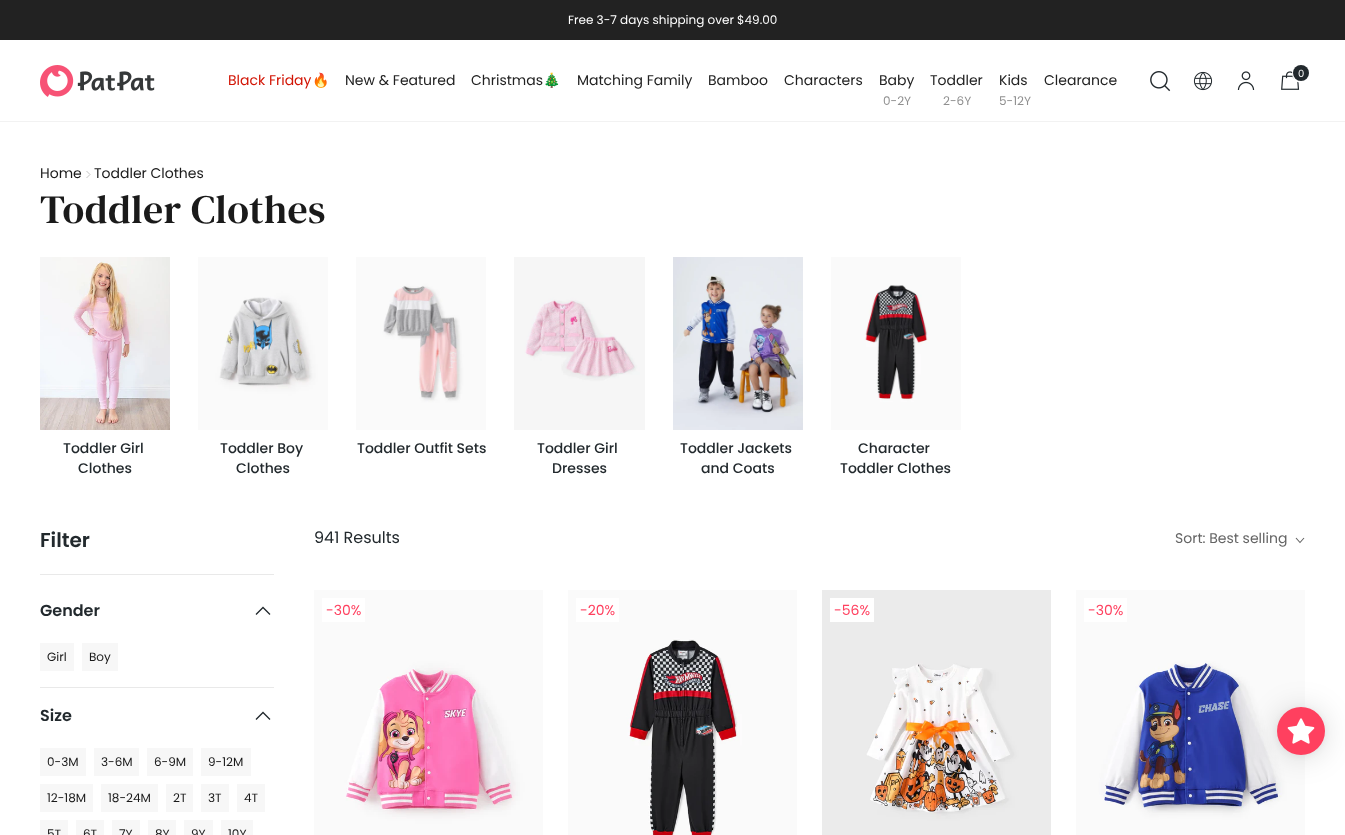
<!DOCTYPE html>
<meta charset="utf-8">
<style>body { margin: 0 } canvas { display: block }</style>
<canvas id="canvas" width="1345" height="835"></canvas>
<script type="module">
  const canvas = document.getElementById("canvas");
  const g = canvas.getContext("2d");
  g.miterLimit = 4;
  g.fontKerning = "normal";
  function drawText(s, x, y, [font, color]) {
    g.font = font;
    g.fillStyle = color;
    g.fillText(s, x, y);
  }
  function fillBox(x, y, w, h, color) {
    g.fillStyle = color;
    g.fillRect(x, y, w, h);
  }
  async function drawPicture(src, x, y, w, h) {
    const img = new Image();
    img.src = src;
    await img.decode();
    g.drawImage(img, x, y, w, h);
  }

  const s1 = ["12px Poppins", "#FFFFFF"];
  const s2 = ["14px Poppins", "#D21404"];
  const s3 = ["14px Noto Color Emoji", "#D21404"];
  const s4 = ["14px Poppins", "#222222"];
  const s5 = ["14px Noto Color Emoji", "#222222"];
  const s6 = ["12px Poppins", "#909090"];
  const s7 = ["10px Poppins", "#FFFFFF"];
  const s8 = ["14px Poppins", "#1A1A1A"];
  const s9 = ["40px DM Serif Text", "#1A1A1A"];
  const s10 = ["500 14px Poppins", "#22292D"];
  const s11 = ["600 20px Poppins", "#22292D"];
  const s12 = ["600 16px Poppins", "#22292D"];
  const s13 = ["12px Poppins", "#1A1A1A"];
  const s14 = ["16px Poppins", "#22292D"];
  const s15 = ["14px 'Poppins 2'", "#646464"];
  const s16 = ["14px Poppins", "#FF405F"];

  fillBox(0, 0, 1345, 835, "#FFFFFF");
  fillBox(0, 0, 1345, 40, "#222222");
  drawText("Free 3-7 days shipping over $49.00", 568, 24, s1);
  fillBox(0, 121, 1345, 1, "#F2F2F2");
  await drawPicture("pic1.png", 40, 65, 115, 32);
  drawText("Black Friday", 228, 85, s2);
  drawText("🔥", 312, 85, s3);
  drawText("New & Featured", 345, 85, s4);
  drawText("Christmas", 471, 85, s4);
  drawText("🎄", 543, 85, s5);
  drawText("Matching Family", 577, 85, s4);
  drawText("Bamboo", 708, 85, s4);
  drawText("Characters", 784, 85, s4);
  drawText("Baby", 879, 85, s4);
  drawText("0-2Y", 883, 105, s6);
  drawText("Toddler", 930, 85, s4);
  drawText("2-6Y", 943, 105, s6);
  drawText("Kids", 999, 85, s4);
  drawText("5-12Y", 999, 105, s6);
  drawText("Clearance", 1044, 85, s4);
  await drawPicture("pic2.png", 1150, 71, 21, 21);
  await drawPicture("pic3.png", 1193, 71, 20, 20);
  await drawPicture("pic4.png", 1237, 71, 18, 19);
  await drawPicture("pic5.png", 1281, 71, 19, 19);
  g.beginPath();
  g.arc(1301.5, 73.5, 8.5, 0, Math.PI * 2);
  g.strokeStyle = "#FFFFFF";
  g.lineWidth = 2;
  g.stroke();
  g.fillStyle = "#22292D";
  g.beginPath();
  g.arc(1301, 73, 8, 0, Math.PI * 2);
  g.fill();
  drawText("0", 1298, 77, s7);
  drawText("Home", 40, 178, s8);
  g.beginPath();
  g.moveTo(86.5, 178);
  g.lineTo(90, 174.5);
  g.lineTo(86.5, 171);
  g.strokeStyle = "#BCBCBC";
  g.lineWidth = 0.9;
  g.stroke();
  drawText("Toddler Clothes", 94, 178, s8);
  g.letterSpacing = "0.5px";
  drawText("Toddler Clothes", 40, 223, s9);
  await drawPicture("pic6.png", 40, 257, 130, 173);
  g.letterSpacing = "0px";
  drawText("Toddler Girl", 63, 453, s10);
  drawText("Clothes", 78, 473, s10);
  await drawPicture("pic7.png", 198, 257, 130, 173);
  drawText("Toddler Boy", 220, 453, s10);
  drawText("Clothes", 236, 473, s10);
  await drawPicture("pic8.png", 356, 257, 130, 173);
  drawText("Toddler Outfit Sets", 357, 453, s10);
  await drawPicture("pic9.png", 514, 257, 131, 173);
  drawText("Toddler Girl", 537, 453, s10);
  drawText("Dresses", 552, 473, s10);
  await drawPicture("pic10.png", 673, 257, 130, 173);
  drawText("Toddler Jackets", 680, 453, s10);
  drawText("and Coats", 701, 473, s10);
  await drawPicture("pic11.png", 831, 257, 130, 173);
  drawText("Character", 858, 453, s10);
  drawText("Toddler Clothes", 840, 473, s10);
  fillBox(40, 574, 234, 1, "#E9E9E9");
  drawText("Filter", 40, 547, s11);
  drawText("Gender", 40, 616, s12);
  g.beginPath();
  g.moveTo(256, 614.5);
  g.lineTo(263, 607.5);
  g.lineTo(270, 614.5);
  g.strokeStyle = "#22292D";
  g.lineWidth = 1.3;
  g.stroke();
  fillBox(40, 643, 34, 28, "#F7F7F7");
  drawText("Girl", 47, 661, s13);
  fillBox(82, 643, 36, 28, "#F7F7F7");
  drawText("Boy", 89, 661, s13);
  fillBox(40, 687, 234, 1, "#E9E9E9");
  drawText("Size", 40, 721, s12);
  g.beginPath();
  g.moveTo(256, 719.5);
  g.lineTo(263, 712.5);
  g.lineTo(270, 719.5);
  g.stroke();
  fillBox(40, 748, 46, 28, "#F7F7F7");
  drawText("0-3M", 47, 766, s13);
  fillBox(94, 748, 45, 28, "#F7F7F7");
  drawText("3-6M", 101, 766, s13);
  fillBox(147, 748, 46, 28, "#F7F7F7");
  drawText("6-9M", 154, 766, s13);
  fillBox(201, 748, 50, 28, "#F7F7F7");
  drawText("9-12M", 208, 766, s13);
  fillBox(40, 784, 53, 28, "#F7F7F7");
  drawText("12-18M", 47, 802, s13);
  fillBox(101, 784, 57, 28, "#F7F7F7");
  drawText("18-24M", 108, 802, s13);
  fillBox(166, 784, 27, 28, "#F7F7F7");
  drawText("2T", 173, 802, s13);
  fillBox(201, 784, 28, 28, "#F7F7F7");
  drawText("3T", 208, 802, s13);
  fillBox(237, 784, 28, 28, "#F7F7F7");
  drawText("4T", 244, 802, s13);
  fillBox(40, 820, 28, 15, "#F7F7F7");
  drawText("5T", 47, 838, s13);
  fillBox(76, 820, 28, 15, "#F7F7F7");
  drawText("6T", 83, 838, s13);
  fillBox(112, 820, 28, 15, "#F7F7F7");
  drawText("7Y", 119, 838, s13);
  fillBox(148, 820, 28, 15, "#F7F7F7");
  drawText("8Y", 155, 838, s13);
  fillBox(184, 820, 29, 15, "#F7F7F7");
  drawText("9Y", 191, 838, s13);
  fillBox(221, 820, 32, 15, "#F7F7F7");
  drawText("10Y", 228, 838, s13);
  drawText("941 Results", 314, 543, s14);
  drawText("Sort: Best selling", 1175, 543, s15);
  g.beginPath();
  g.moveTo(1296, 538);
  g.lineTo(1300, 542.5);
  g.lineTo(1304, 538);
  g.strokeStyle = "#646464";
  g.lineWidth = 1.1;
  g.stroke();
  await drawPicture("pic12.png", 314, 590, 229, 245);
  fillBox(322, 598, 43, 24, "#FFFFFF");
  drawText("-30%", 326, 615, s16);
  await drawPicture("pic13.png", 568, 590, 229, 245);
  fillBox(576, 598, 43, 24, "#FFFFFF");
  drawText("-20%", 580, 615, s16);
  await drawPicture("pic14.png", 822, 590, 229, 245);
  fillBox(830, 598, 44, 24, "#FFFFFF");
  drawText("-56%", 834, 615, s16);
  await drawPicture("pic15.png", 1076, 590, 229, 245);
  fillBox(1084, 598, 43, 24, "#FFFFFF");
  drawText("-30%", 1088, 615, s16);
  g.fillStyle = "rgba(0, 0, 0, 0.15)";
  g.filter = "blur(15px)";
  g.beginPath();
  g.roundRect(1277, 709, 48, 48, 24);
  g.fill();
  g.filter = "none";
  g.fillStyle = "rgba(0, 0, 0, 0.05)";
  g.filter = "blur(3px)";
  g.beginPath();
  g.roundRect(1277, 708, 48, 48, 24);
  g.fill();
  g.filter = "none";
  g.fillStyle = "#FF405F";
  g.beginPath();
  g.arc(1301, 731, 24, 0, Math.PI * 2);
  g.fill();
  await drawPicture("pic16.png", 1287, 718, 28, 26);
</script>
